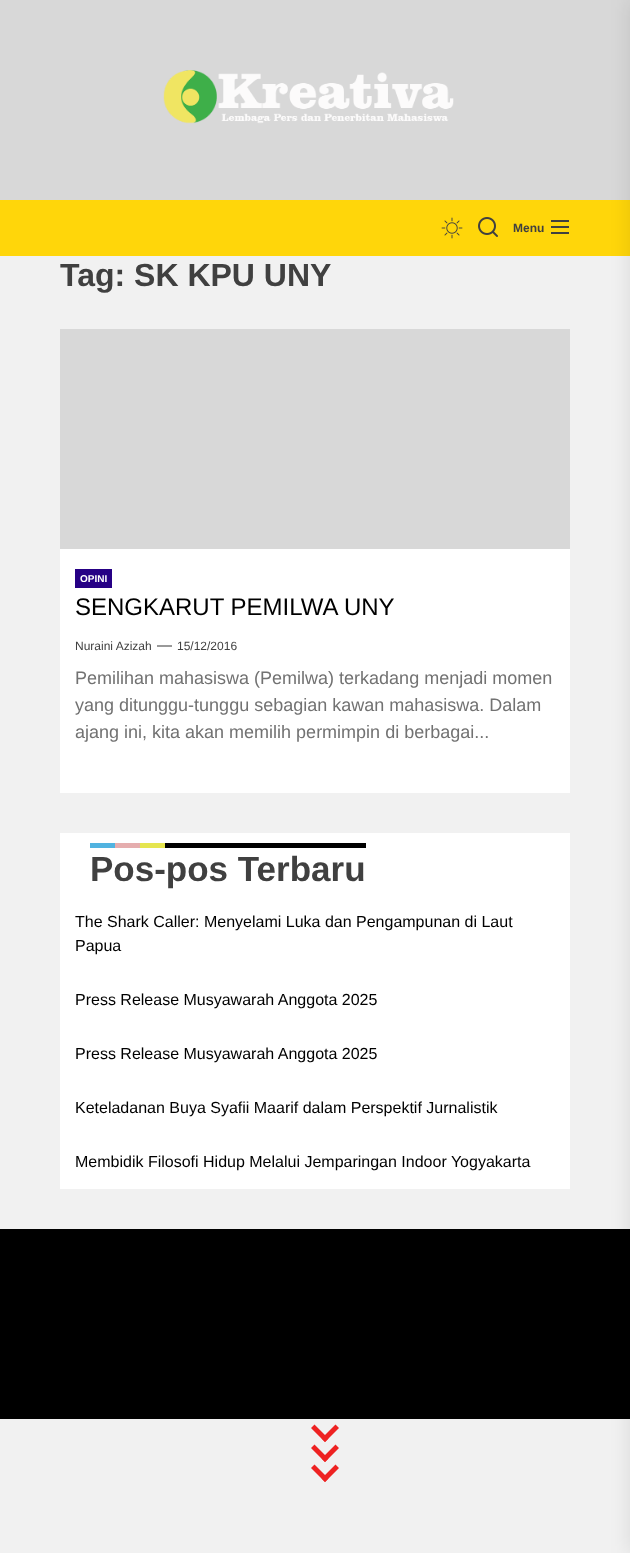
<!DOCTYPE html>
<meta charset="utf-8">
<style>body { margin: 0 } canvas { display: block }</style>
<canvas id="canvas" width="630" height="1553"></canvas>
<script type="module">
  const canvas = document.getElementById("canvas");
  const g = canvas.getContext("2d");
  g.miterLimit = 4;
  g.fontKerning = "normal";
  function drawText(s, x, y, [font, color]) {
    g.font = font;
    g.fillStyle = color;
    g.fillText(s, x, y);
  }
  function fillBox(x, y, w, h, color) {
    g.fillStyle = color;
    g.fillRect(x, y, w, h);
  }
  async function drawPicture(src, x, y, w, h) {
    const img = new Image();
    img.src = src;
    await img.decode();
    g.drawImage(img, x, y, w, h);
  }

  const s1 = ["bold 12px Liberation Sans", "#404040"];
  const s2 = ["bold 32px Liberation Sans", "#404040"];
  const s3 = ["bold 10px Liberation Sans", "#FFFFFF"];
  const s4 = ["24px Liberation Sans", "#000000"];
  const s5 = ["12px Liberation Sans", "#404040"];
  const s6 = ["18px Liberation Sans", "#727272"];
  const s7 = ["bold 35px Liberation Sans", "#404040"];
  const s8 = ["16px Liberation Sans", "#000000"];

  fillBox(0, 0, 630, 1553, "#F1F1F1");
  fillBox(0, 0, 630, 200, "#D8D8D8");
  await drawPicture("pic1.png", 163, 70, 291, 54);
  fillBox(0, 200, 630, 56, "#FFD60A");
  await drawPicture("pic2.png", 441, 217, 22, 22);
  await drawPicture("pic3.png", 478, 217, 20, 20);
  drawText("Menu", 513, 232, s1);
  await drawPicture("pic4.png", 551, 220, 18, 14);
  fillBox(0, 1229, 630, 190, "#000000");
  g.fillStyle = "rgba(0, 0, 0, 0.1)";
  g.filter = "blur(10px)";
  g.beginPath();
  g.rect(630, 0, 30, 1553);
  g.fill();
  g.filter = "none";
  drawText("Tag: SK KPU UNY", 60, 286, s2);
  fillBox(60, 549, 510, 244, "#FFFFFF");
  fillBox(60, 329, 510, 220, "#D8D8D8");
  fillBox(75, 569, 37, 19, "#260085");
  drawText("OPINI", 80, 582, s3);
  drawText("SENGKARUT PEMILWA UNY", 75, 615, s4);
  drawText("Nuraini Azizah", 75, 650, s5);
  fillBox(157, 645, 15, 2, "#999999");
  drawText("15/12/2016", 177, 650, s5);
  drawText("Pemilihan mahasiswa (Pemilwa) terkadang menjadi momen", 75, 684, s6);
  drawText("yang ditunggu-tunggu sebagian kawan mahasiswa. Dalam", 75, 711, s6);
  drawText("ajang ini, kita akan memilih permimpin di berbagai...", 75, 738, s6);
  fillBox(60, 833, 510, 356, "#FFFFFF");
  fillBox(90, 843, 25, 5, "#51B3E0");
  fillBox(115, 843, 25, 5, "#E5ADAE");
  fillBox(140, 843, 25, 5, "#E5E54F");
  fillBox(165, 843, 201, 5, "#000000");
  drawText("Pos-pos Terbaru", 90, 881, s7);
  drawText("The Shark Caller: Menyelami Luka dan Pengampunan di Laut", 75, 927, s8);
  drawText("Papua", 75, 951, s8);
  drawText("Press Release Musyawarah Anggota 2025", 75, 1005, s8);
  drawText("Press Release Musyawarah Anggota 2025", 75, 1059, s8);
  drawText("Keteladanan Buya Syafii Maarif dalam Perspektif Jurnalistik", 75, 1113, s8);
  drawText("Membidik Filosofi Hidup Melalui Jemparingan Indoor Yogyakarta", 75, 1167, s8);
  g.fillStyle = "#EE2222";
  g.beginPath();
  g.moveTo(335.5, 1424.5);
  g.lineTo(339, 1428);
  g.lineTo(325, 1442);
  g.lineTo(321.5, 1438.5);
  g.closePath();
  g.fill();
  g.beginPath();
  g.moveTo(314.5, 1424.5);
  g.lineTo(328.5, 1438.5);
  g.lineTo(325, 1442);
  g.lineTo(311, 1428);
  g.closePath();
  g.moveTo(335.5, 1444.5);
  g.lineTo(339, 1448);
  g.lineTo(325, 1462);
  g.lineTo(321.5, 1458.5);
  g.closePath();
  g.fill();
  g.beginPath();
  g.moveTo(314.5, 1444.5);
  g.lineTo(328.5, 1458.5);
  g.lineTo(325, 1462);
  g.lineTo(311, 1448);
  g.closePath();
  g.moveTo(335.5, 1464.5);
  g.lineTo(339, 1468);
  g.lineTo(325, 1482);
  g.lineTo(321.5, 1478.5);
  g.closePath();
  g.fill();
  g.beginPath();
  g.moveTo(314.5, 1464.5);
  g.lineTo(328.5, 1478.5);
  g.lineTo(325, 1482);
  g.lineTo(311, 1468);
  g.closePath();
  g.fill();
</script>
